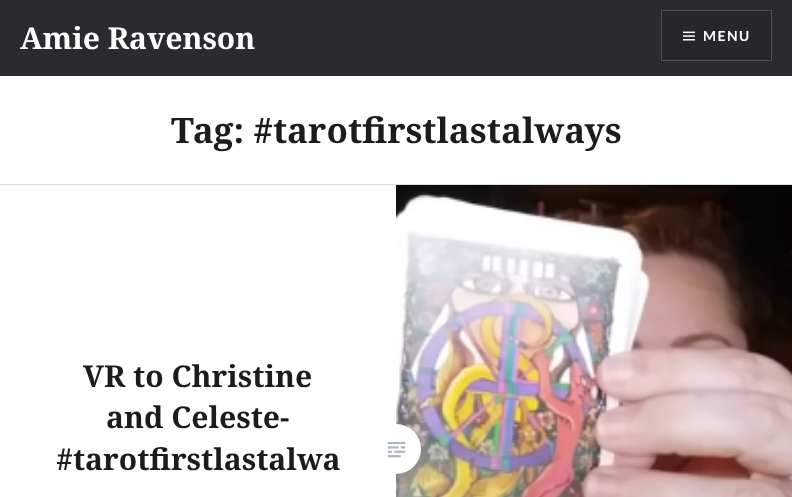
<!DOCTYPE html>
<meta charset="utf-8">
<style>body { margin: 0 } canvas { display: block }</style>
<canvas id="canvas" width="792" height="497"></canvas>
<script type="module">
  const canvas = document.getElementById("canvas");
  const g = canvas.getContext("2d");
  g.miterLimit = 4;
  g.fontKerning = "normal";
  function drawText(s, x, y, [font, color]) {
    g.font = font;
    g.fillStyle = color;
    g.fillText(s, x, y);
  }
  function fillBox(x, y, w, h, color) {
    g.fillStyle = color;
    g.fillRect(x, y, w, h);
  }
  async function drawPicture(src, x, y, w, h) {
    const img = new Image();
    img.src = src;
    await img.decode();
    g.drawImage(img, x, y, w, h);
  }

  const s1 = ["bold 30px Noto Serif", "#FFFFFF"];
  const s2 = ["bold 14px Lato", "#FFFFFF"];
  const s3 = ["bold 35px Noto Serif", "#1A1C1E"];
  const s4 = ["bold 30px Noto Serif", "#1A1C1E"];

  fillBox(0, 0, 792, 497, "#FFFFFF");
  fillBox(0, 0, 792, 76, "#292C2F");
  drawText("Amie Ravenson", 20, 49, s1);
  g.fillStyle = "#25282A";
  g.beginPath();
  g.rect(661.5, 10.5, 110, 50);
  g.fill();
  g.strokeStyle = "#515355";
  g.stroke();
  await drawPicture("pic1.png", 683, 31, 12, 10);
  g.letterSpacing = "1.5px";
  drawText("MENU", 703, 41, s2);
  fillBox(0, 184, 792, 1, "#D9DFE5");
  g.letterSpacing = "0px";
  drawText("Tag: #tarotfirstlastalways", 171, 143, s3);
  drawText("VR to Christine", 83, 387, s4);
  drawText("and Celeste-", 106, 428, s4);
  drawText("#tarotfirstlastalwa", 56, 470, s4);
  await drawPicture("pic3.png", 396, 185, 396, 312);
  g.fillStyle = "#FFFFFF";
  g.beginPath();
  g.arc(396, 449, 25, 0, Math.PI * 2);
  g.fill();
  await drawPicture("pic2.png", 387, 441, 19, 17);
</script>
